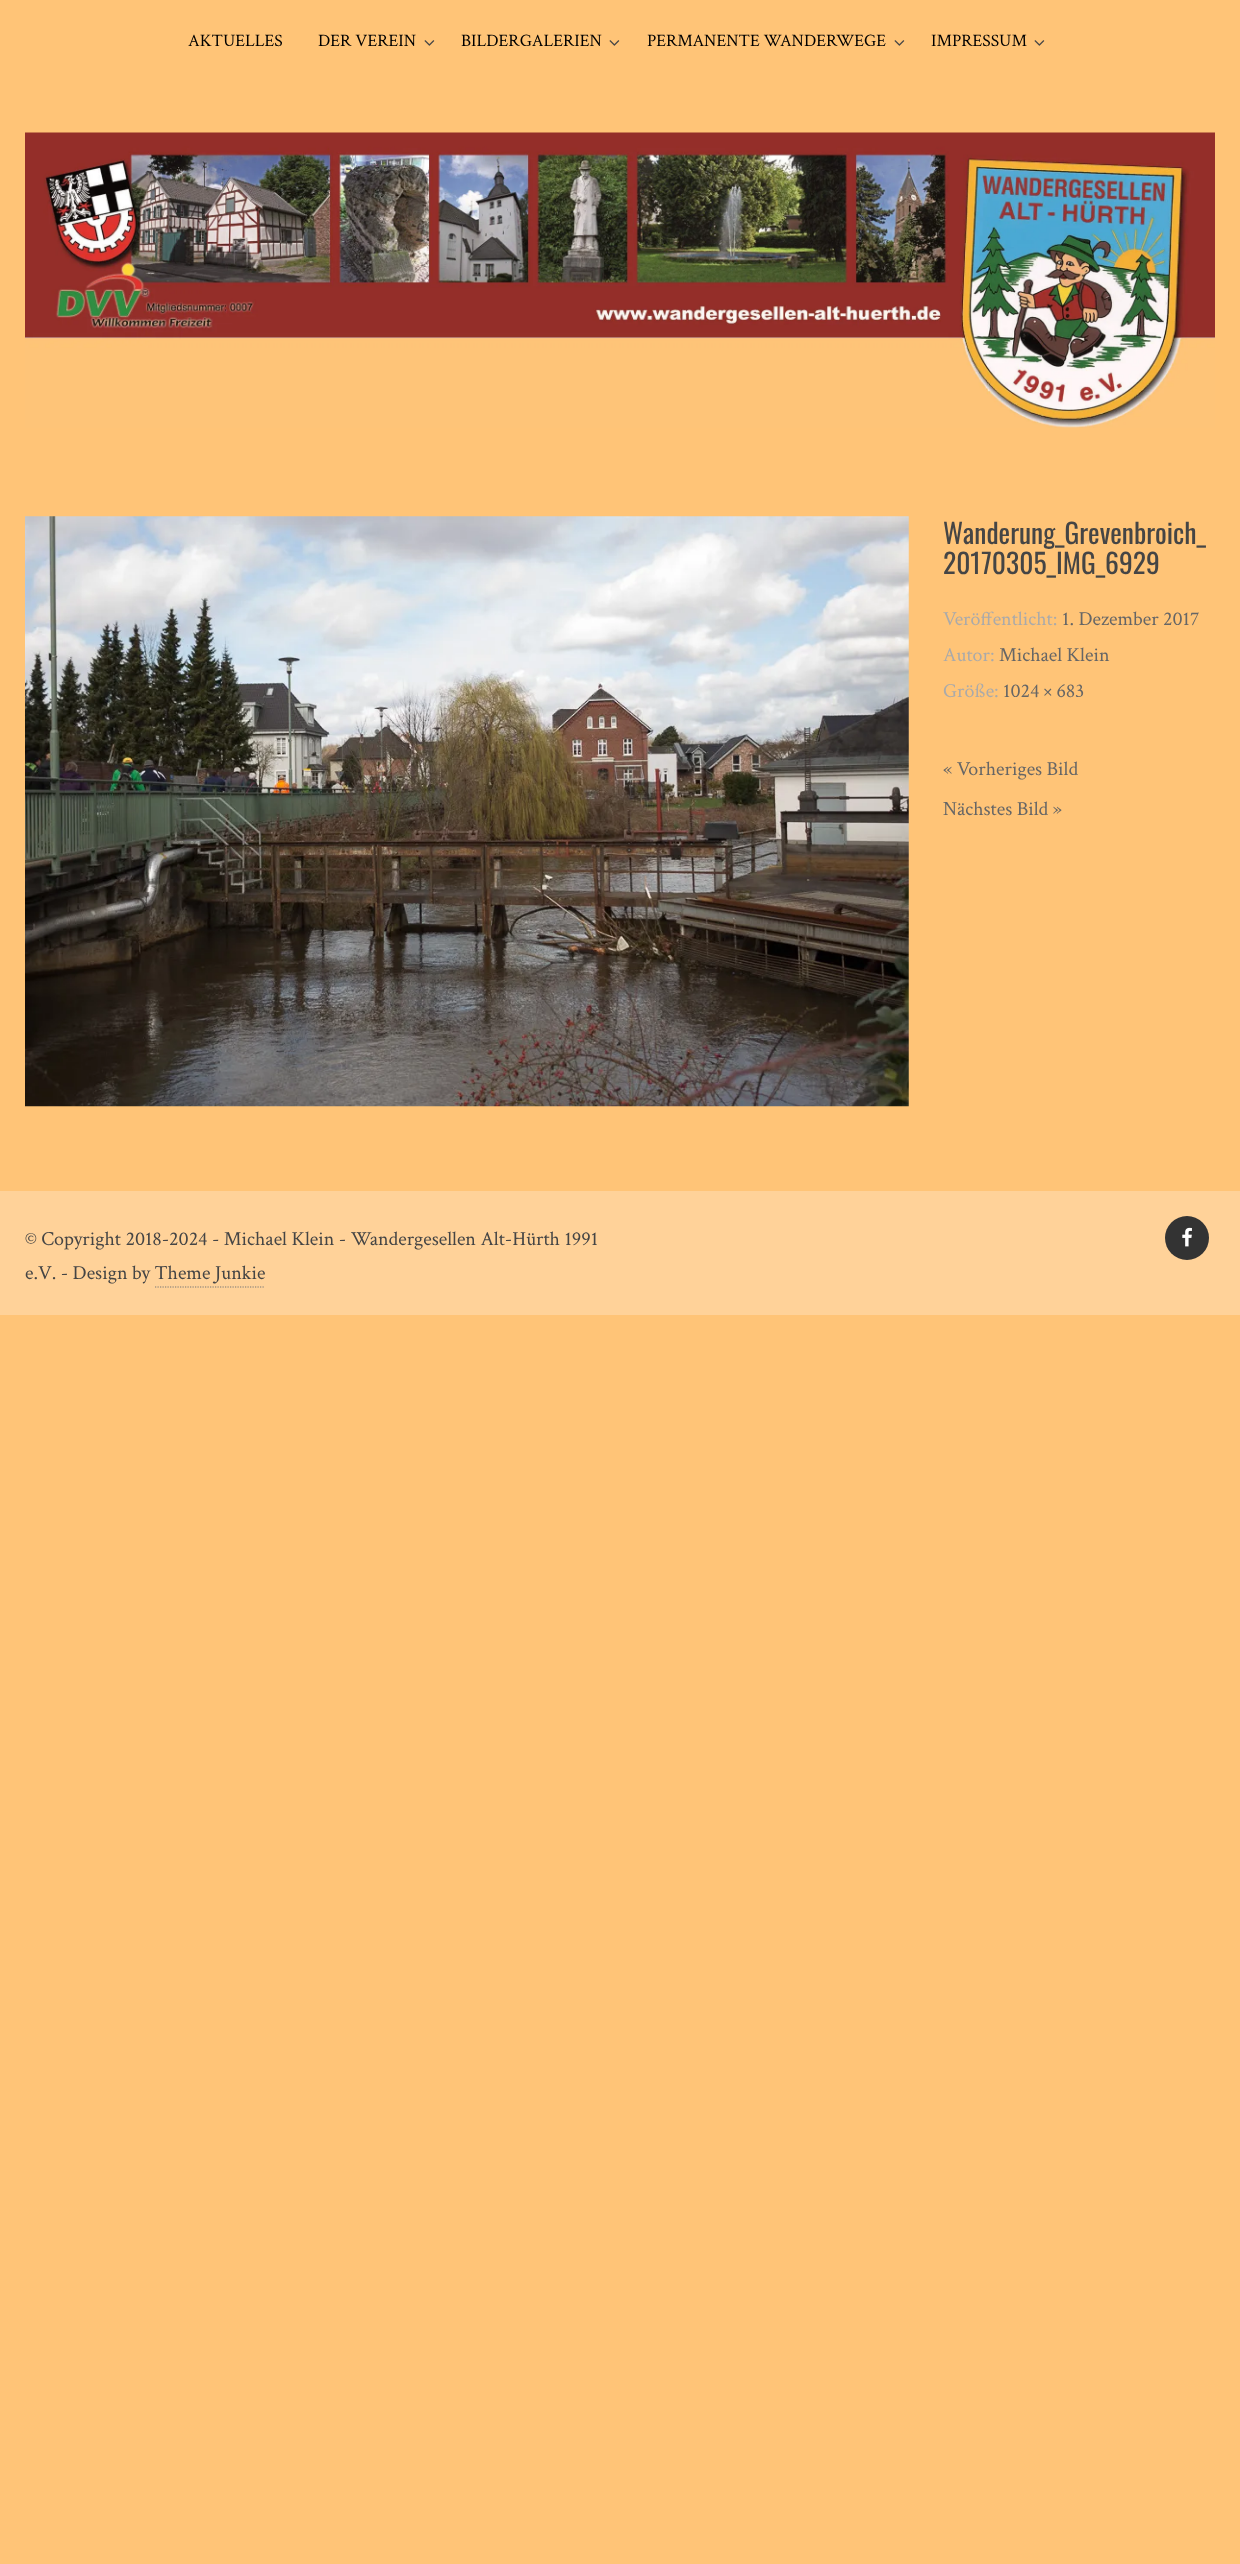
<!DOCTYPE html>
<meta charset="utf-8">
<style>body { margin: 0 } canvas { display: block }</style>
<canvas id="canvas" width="1240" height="2564"></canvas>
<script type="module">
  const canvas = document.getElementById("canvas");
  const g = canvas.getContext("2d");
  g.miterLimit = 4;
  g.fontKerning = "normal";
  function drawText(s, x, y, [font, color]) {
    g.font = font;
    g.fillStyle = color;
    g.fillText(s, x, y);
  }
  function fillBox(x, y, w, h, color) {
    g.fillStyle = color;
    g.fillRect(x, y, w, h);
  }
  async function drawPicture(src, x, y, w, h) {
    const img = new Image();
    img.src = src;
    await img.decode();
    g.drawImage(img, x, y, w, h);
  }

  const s1 = ["17.5px Crimson Text", "#000000"];
  const s2 = ["27.5px Oswald", "#454545"];
  const s3 = ["20px Crimson Text", "#AAAAAA"];
  const s4 = ["20px Crimson Text", "#666666"];
  const s5 = ["20px Crimson Text", "#454545"];

  fillBox(0, 0, 1240, 2564, "#FFC477");
  drawText("AKTUELLES", 188, 46, s1);
  drawText("DER VEREIN", 318, 46, s1);
  await drawPicture("pic1.png", 424, 40, 11, 6);
  drawText("BILDERGALERIEN", 461, 46, s1);
  await drawPicture("pic1.png", 609, 40, 11, 6);
  drawText("PERMANENTE WANDERWEGE", 647, 46, s1);
  await drawPicture("pic1.png", 894, 40, 11, 6);
  drawText("IMPRESSUM", 931, 46, s1);
  await drawPicture("pic1.png", 1034, 40, 11, 6);
  await drawPicture("pic2.png", 25, 132, 1190, 296);
  await drawPicture("pic3.png", 25, 516, 884, 591);
  drawText("Wanderung_Grevenbroich_", 943, 544, s2);
  drawText("20170305_IMG_6929", 943, 574, s2);
  drawText("Veröffentlicht:", 943, 625, s3);
  drawText("1. Dezember 2017", 1062, 625, s4);
  drawText("Autor:", 943, 661, s3);
  drawText("Michael Klein", 999, 661, s4);
  drawText("Größe:", 943, 697, s3);
  drawText("1024 × 683", 1003, 697, s4);
  drawText("« Vorheriges Bild", 943, 775, s4);
  drawText("Nächstes Bild »", 943, 815, s4);
  fillBox(0, 1191, 1240, 124, "#FFD299");
  drawText("© Copyright 2018-2024 - Michael Klein - Wandergesellen Alt-Hürth 1991", 25, 1245, s5);
  drawText("e.V. - Design by Theme Junkie", 25, 1279, s5);
  g.beginPath();
  g.moveTo(155, 1287);
  g.lineTo(265, 1287);
  g.strokeStyle = "#777777";
  g.lineWidth = 1.2;
  g.setLineDash([1.25, 1.25]);
  g.stroke();
  g.fillStyle = "#333333";
  g.beginPath();
  g.arc(1187, 1238, 22, 0, Math.PI * 2);
  g.fill();
  await drawPicture("pic4.png", 1182, 1227, 10, 20);
</script>
